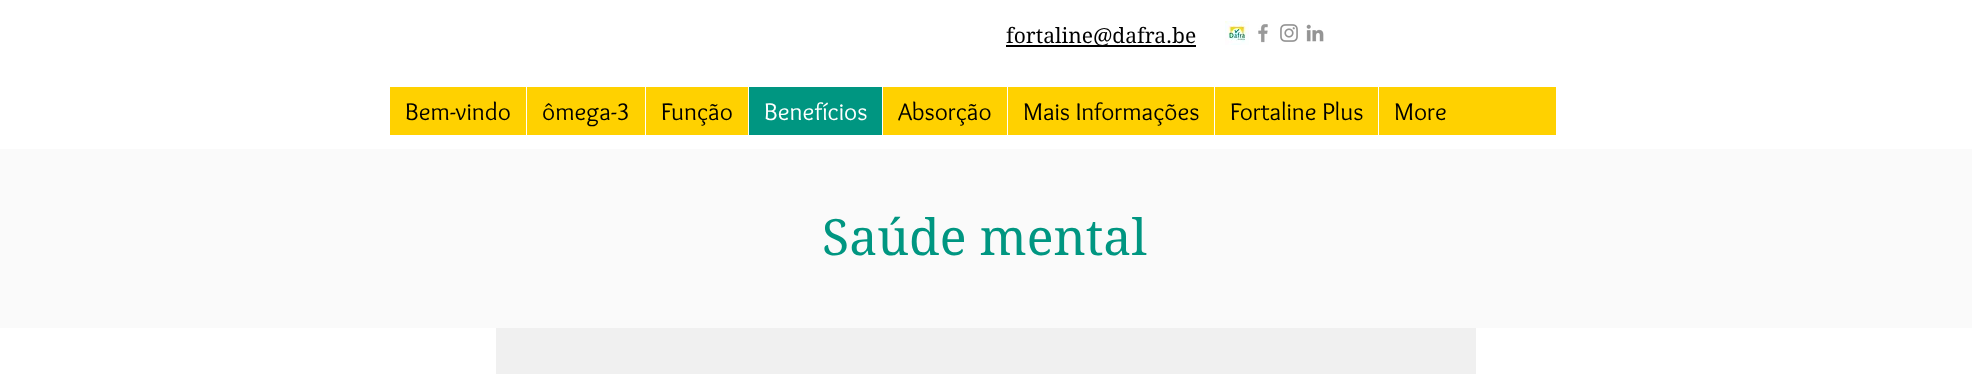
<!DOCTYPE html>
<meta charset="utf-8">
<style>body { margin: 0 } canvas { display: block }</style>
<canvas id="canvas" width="1972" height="374"></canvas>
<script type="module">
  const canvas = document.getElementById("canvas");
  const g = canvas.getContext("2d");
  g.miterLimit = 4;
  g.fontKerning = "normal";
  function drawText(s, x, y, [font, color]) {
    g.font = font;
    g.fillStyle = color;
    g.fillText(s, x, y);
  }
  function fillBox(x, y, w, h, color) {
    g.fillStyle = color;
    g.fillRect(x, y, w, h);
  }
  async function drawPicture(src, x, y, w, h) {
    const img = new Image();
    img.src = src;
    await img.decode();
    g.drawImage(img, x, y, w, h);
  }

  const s1 = ["21px 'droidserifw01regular'", "#000000"];
  const s2 = ["25px Overlock", "#000000"];
  const s3 = ["25px Overlock", "#FFFFFF"];
  const s4 = ["50px 'droidserifw01regular'", "#009681"];

  fillBox(0, 0, 1972, 374, "#FFFFFF");
  fillBox(1006, 45, 190, 2, "#000000");
  drawText("fortaline@dafra.be", 1006, 43, s1);
  await drawPicture("pic1.png", 1225, 21, 24, 24);
  await drawPicture("pic2.png", 1258, 24, 10, 19);
  await drawPicture("pic3.png", 1280, 24, 18, 18);
  await drawPicture("pic4.png", 1306, 24, 18, 18);
  fillBox(390, 87, 1166, 48, "#FFD100");
  drawText("Bem-vindo", 405, 120, s2);
  fillBox(526, 87, 1, 48, "#FFFFFF");
  drawText("ômega-3", 542, 120, s2);
  fillBox(645, 87, 1, 48, "#FFFFFF");
  drawText("Função", 661, 120, s2);
  fillBox(749, 87, 133, 48, "#009681");
  fillBox(748, 87, 1, 48, "#FFFFFF");
  drawText("Benefícios", 764, 120, s3);
  fillBox(882, 87, 1, 48, "#FFFFFF");
  drawText("Absorção", 898, 120, s2);
  fillBox(1007, 87, 1, 48, "#FFFFFF");
  drawText("Mais Informações", 1023, 120, s2);
  fillBox(1214, 87, 1, 48, "#FFFFFF");
  drawText("Fortaline Plus", 1230, 120, s2);
  fillBox(1378, 87, 1, 48, "#FFFFFF");
  drawText("More", 1394, 120, s2);
  fillBox(0, 149, 1972, 179, "#FAFAFA");
  drawText("Saúde mental", 822, 255, s4);
  fillBox(496, 328, 980, 46, "#F0F0F0");
</script>
